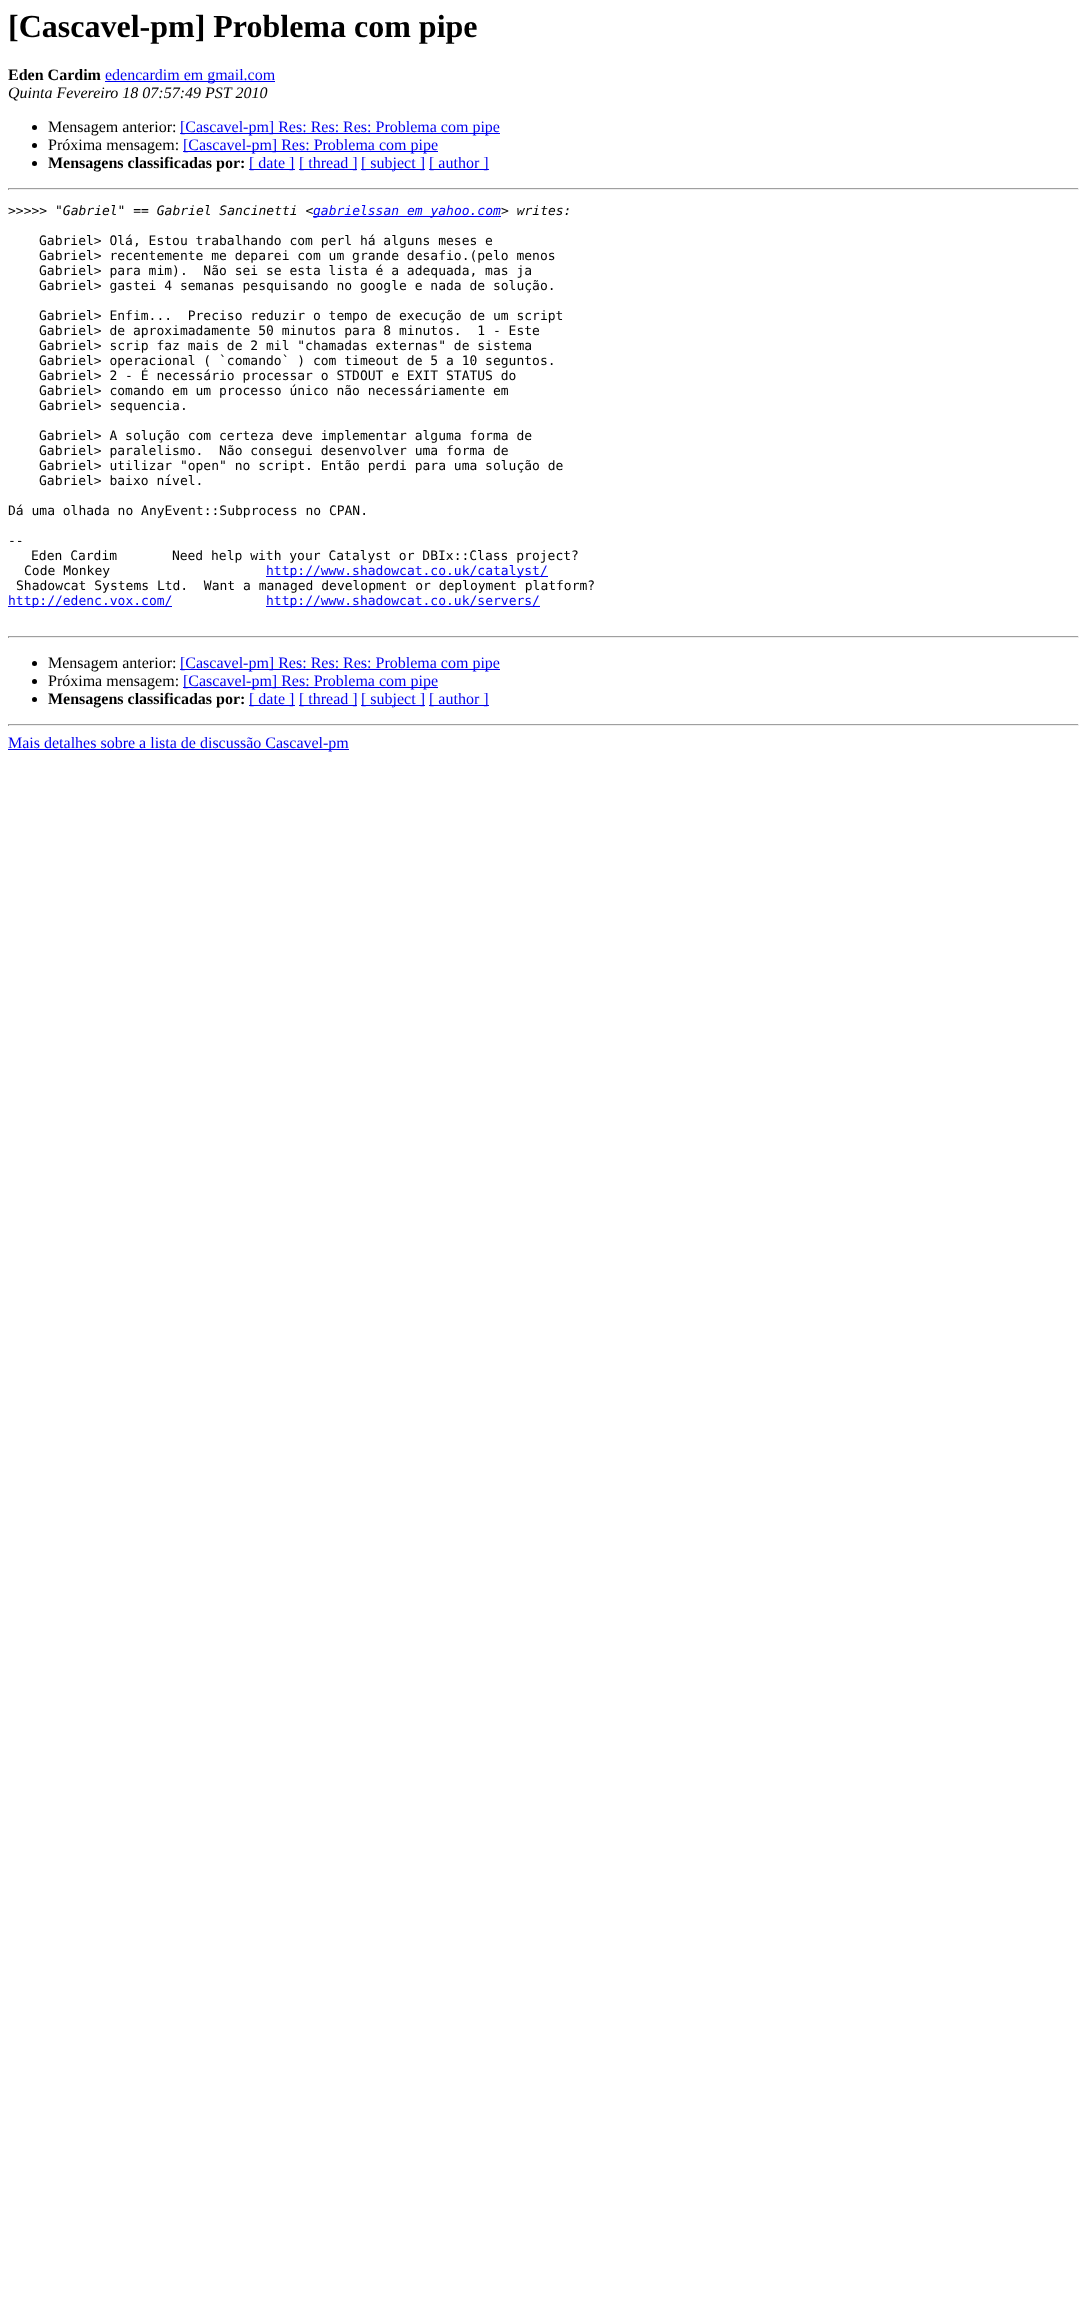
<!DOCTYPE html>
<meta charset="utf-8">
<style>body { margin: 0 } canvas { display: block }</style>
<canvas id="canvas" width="1087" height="2300"></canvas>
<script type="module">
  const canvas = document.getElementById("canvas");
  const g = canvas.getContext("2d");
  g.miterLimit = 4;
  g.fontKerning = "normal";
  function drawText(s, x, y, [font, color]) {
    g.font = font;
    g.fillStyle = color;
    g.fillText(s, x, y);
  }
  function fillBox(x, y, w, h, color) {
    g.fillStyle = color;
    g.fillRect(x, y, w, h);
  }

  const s1 = ["bold 32px Liberation Serif", "#000000"];
  const s2 = ["bold 16px Liberation Serif", "#000000"];
  const s3 = ["16px Liberation Serif", "#0000EE"];
  const s4 = ["italic 16px Liberation Serif", "#000000"];
  const s5 = ["16px Liberation Serif", "#000000"];
  const s6 = ["13px DejaVu Sans Mono", "#000000"];
  const s7 = ["italic 13px DejaVu Sans Mono", "#000000"];
  const s8 = ["italic 13px DejaVu Sans Mono", "#0000EE"];
  const s9 = ["13px DejaVu Sans Mono", "#0000EE"];

  fillBox(0, 0, 1087, 2300, "#FFFFFF");
  drawText("[Cascavel-pm] Problema com pipe", 8, 37, s1);
  drawText("Eden Cardim", 8, 80, s2);
  fillBox(105, 81, 170, 1, "#0000EE");
  drawText("edencardim em gmail.com", 105, 80, s3);
  drawText("Quinta Fevereiro 18 07:57:49 PST 2010", 8, 98, s4);
  g.beginPath();
  g.arc(34.5, 127.5, 2.5, 0, Math.PI * 2);
  g.fill();
  drawText("Mensagem anterior:", 48, 132, s5);
  fillBox(180, 133, 320, 1, "#0000EE");
  drawText("[Cascavel-pm] Res: Res: Res: Problema com pipe", 180, 132, s3);
  g.fillStyle = "#000000";
  g.beginPath();
  g.arc(34.5, 145.5, 2.5, 0, Math.PI * 2);
  g.fill();
  drawText("Próxima mensagem:", 48, 150, s5);
  fillBox(183, 151, 255, 1, "#0000EE");
  drawText("[Cascavel-pm] Res: Problema com pipe", 183, 150, s3);
  g.fillStyle = "#000000";
  g.beginPath();
  g.arc(34.5, 163.5, 2.5, 0, Math.PI * 2);
  g.fill();
  drawText("Mensagens classificadas por:", 48, 168, s2);
  fillBox(249, 169, 46, 1, "#0000EE");
  drawText("[ date ]", 249, 168, s3);
  fillBox(299, 169, 58, 1, "#0000EE");
  drawText("[ thread ]", 299, 168, s3);
  fillBox(361, 169, 64, 1, "#0000EE");
  drawText("[ subject ]", 361, 168, s3);
  fillBox(429, 169, 60, 1, "#0000EE");
  drawText("[ author ]", 429, 168, s3);
  fillBox(8, 188, 1071, 1, "#9F9F9F");
  fillBox(1078, 188, 1, 2, "#EEEEEE");
  fillBox(8, 189, 1071, 1, "#EEEEEE");
  fillBox(8, 188, 1, 2, "#9F9F9F");
  drawText(">>>>>", 8, 215, s6);
  drawText("\"Gabriel\" == Gabriel Sancinetti <", 55, 215, s7);
  fillBox(313, 216, 188, 1, "#0000EE");
  drawText("gabrielssan em yahoo.com", 313, 215, s8);
  drawText("> writes:", 501, 215, s7);
  drawText("Gabriel> Olá, Estou trabalhando com perl há alguns meses e", 39, 245, s6);
  drawText("Gabriel> recentemente me deparei com um grande desafio.(pelo menos", 39, 260, s6);
  drawText("Gabriel> para mim).  Não sei se esta lista é a adequada, mas ja", 39, 275, s6);
  drawText("Gabriel> gastei 4 semanas pesquisando no google e nada de solução.", 39, 290, s6);
  drawText("Gabriel> Enfim...  Preciso reduzir o tempo de execução de um script", 39, 320, s6);
  drawText("Gabriel> de aproximadamente 50 minutos para 8 minutos.  1 - Este", 39, 335, s6);
  drawText("Gabriel> scrip faz mais de 2 mil \"chamadas externas\" de sistema", 39, 350, s6);
  drawText("Gabriel> operacional ( `comando` ) com timeout de 5 a 10 seguntos.", 39, 365, s6);
  drawText("Gabriel> 2 - É necessário processar o STDOUT e EXIT STATUS do", 39, 380, s6);
  drawText("Gabriel> comando em um processo único não necessáriamente em", 39, 395, s6);
  drawText("Gabriel> sequencia.", 39, 410, s6);
  drawText("Gabriel> A solução com certeza deve implementar alguma forma de", 39, 440, s6);
  drawText("Gabriel> paralelismo.  Não consegui desenvolver uma forma de", 39, 455, s6);
  drawText("Gabriel> utilizar \"open\" no script. Então perdi para uma solução de", 39, 470, s6);
  drawText("Gabriel> baixo nível.", 39, 485, s6);
  drawText("Dá uma olhada no AnyEvent::Subprocess no CPAN.", 8, 515, s6);
  drawText("--", 8, 545, s6);
  drawText("Eden Cardim       Need help with your Catalyst or DBIx::Class project?", 31, 560, s6);
  drawText("Code Monkey", 24, 575, s6);
  fillBox(266, 576, 282, 1, "#0000EE");
  drawText("http://www.shadowcat.co.uk/catalyst/", 266, 575, s9);
  drawText("Shadowcat Systems Ltd.  Want a managed development or deployment platform?", 16, 590, s6);
  fillBox(8, 606, 164, 1, "#0000EE");
  drawText("http://edenc.vox.com/", 8, 605, s9);
  fillBox(266, 606, 274, 1, "#0000EE");
  drawText("http://www.shadowcat.co.uk/servers/", 266, 605, s9);
  fillBox(8, 636, 1071, 1, "#9F9F9F");
  fillBox(1078, 636, 1, 2, "#EEEEEE");
  fillBox(8, 637, 1071, 1, "#EEEEEE");
  fillBox(8, 636, 1, 2, "#9F9F9F");
  g.fillStyle = "#000000";
  g.beginPath();
  g.arc(34.5, 663.5, 2.5, 0, Math.PI * 2);
  g.fill();
  drawText("Mensagem anterior:", 48, 668, s5);
  fillBox(180, 669, 320, 1, "#0000EE");
  drawText("[Cascavel-pm] Res: Res: Res: Problema com pipe", 180, 668, s3);
  g.fillStyle = "#000000";
  g.beginPath();
  g.arc(34.5, 681.5, 2.5, 0, Math.PI * 2);
  g.fill();
  drawText("Próxima mensagem:", 48, 686, s5);
  fillBox(183, 687, 255, 1, "#0000EE");
  drawText("[Cascavel-pm] Res: Problema com pipe", 183, 686, s3);
  g.fillStyle = "#000000";
  g.beginPath();
  g.arc(34.5, 699.5, 2.5, 0, Math.PI * 2);
  g.fill();
  drawText("Mensagens classificadas por:", 48, 704, s2);
  fillBox(249, 705, 46, 1, "#0000EE");
  drawText("[ date ]", 249, 704, s3);
  fillBox(299, 705, 58, 1, "#0000EE");
  drawText("[ thread ]", 299, 704, s3);
  fillBox(361, 705, 64, 1, "#0000EE");
  drawText("[ subject ]", 361, 704, s3);
  fillBox(429, 705, 60, 1, "#0000EE");
  drawText("[ author ]", 429, 704, s3);
  fillBox(8, 724, 1071, 1, "#9F9F9F");
  fillBox(1078, 724, 1, 2, "#EEEEEE");
  fillBox(8, 725, 1071, 1, "#EEEEEE");
  fillBox(8, 724, 1, 2, "#9F9F9F");
  fillBox(8, 749, 341, 1, "#0000EE");
  drawText("Mais detalhes sobre a lista de discussão Cascavel-pm", 8, 748, s3);
</script>
